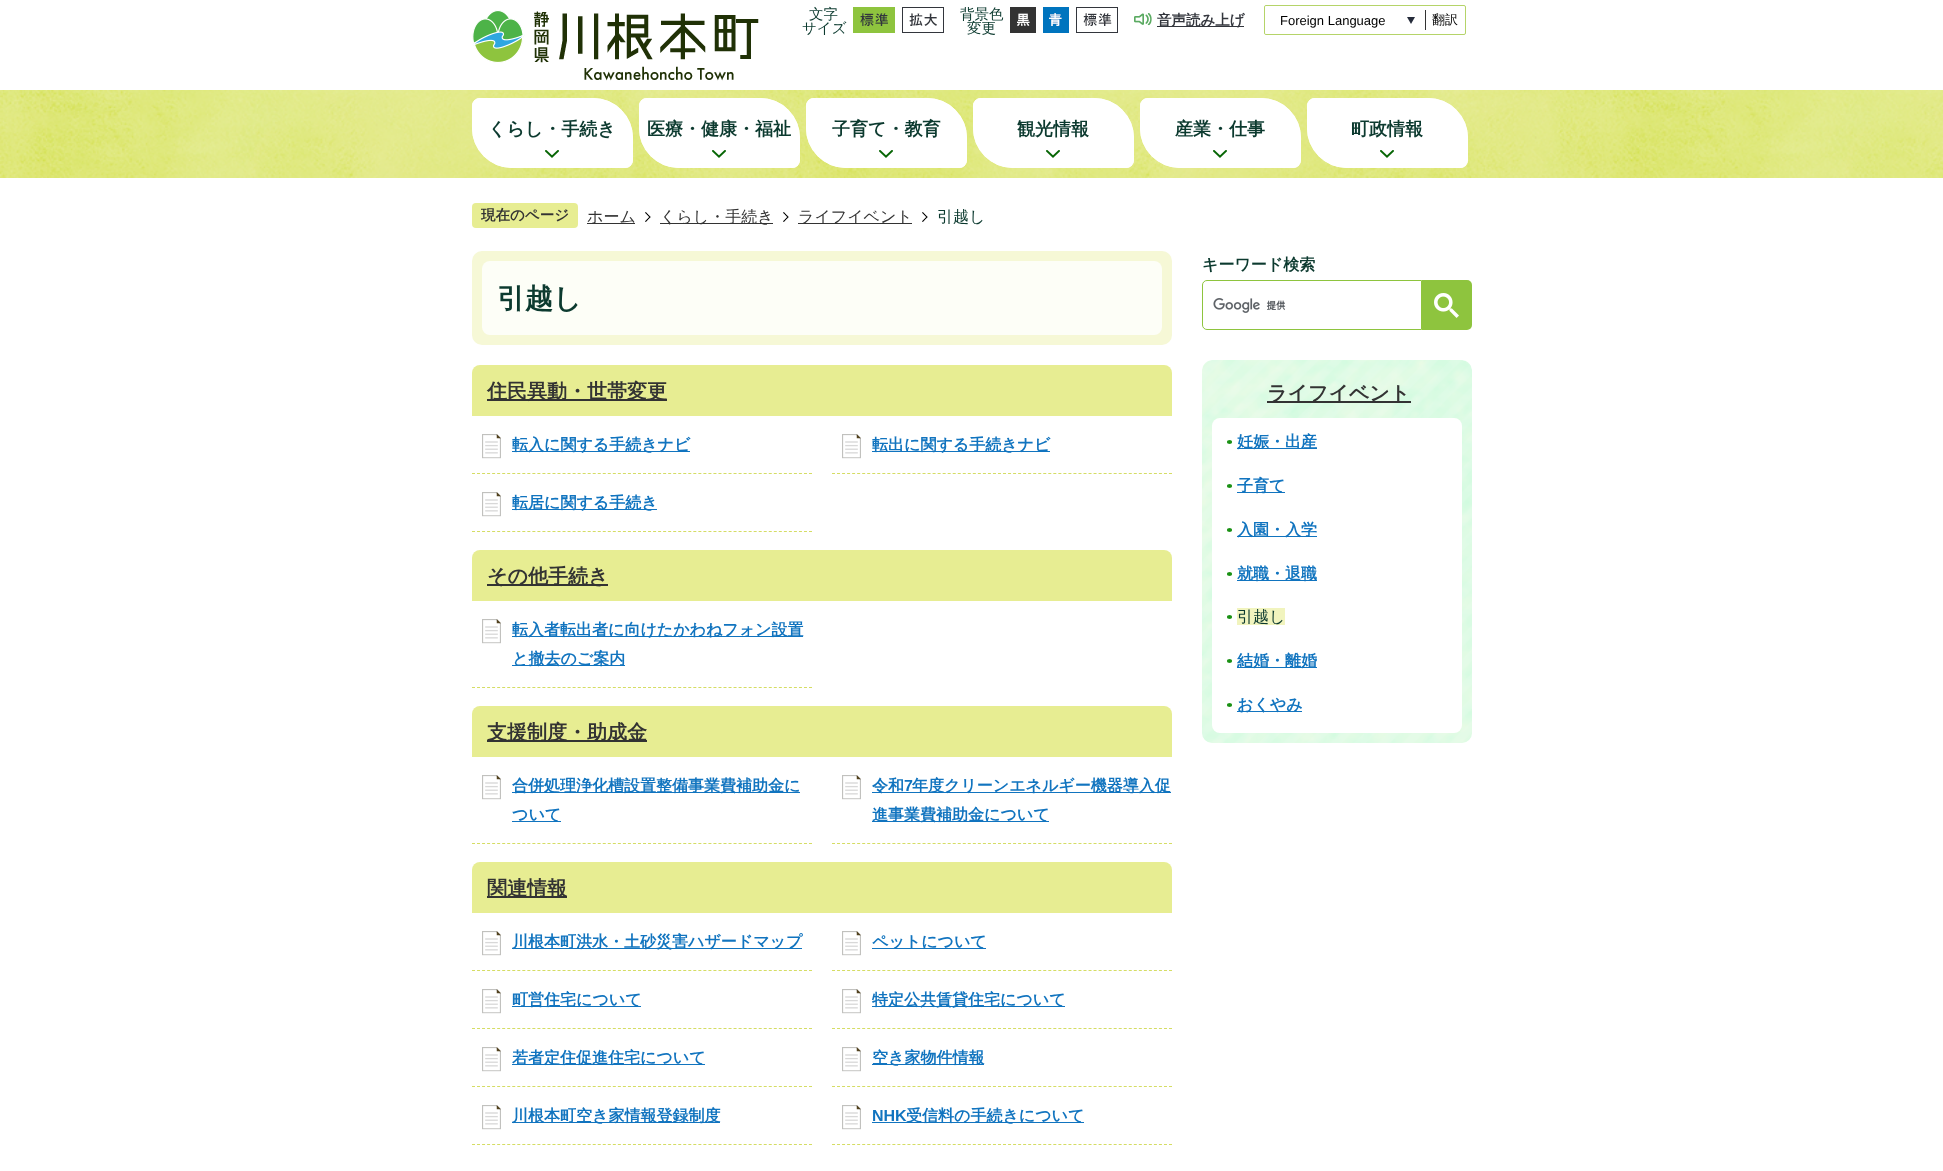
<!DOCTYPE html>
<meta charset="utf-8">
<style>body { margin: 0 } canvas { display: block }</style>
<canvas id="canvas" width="1943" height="1171"></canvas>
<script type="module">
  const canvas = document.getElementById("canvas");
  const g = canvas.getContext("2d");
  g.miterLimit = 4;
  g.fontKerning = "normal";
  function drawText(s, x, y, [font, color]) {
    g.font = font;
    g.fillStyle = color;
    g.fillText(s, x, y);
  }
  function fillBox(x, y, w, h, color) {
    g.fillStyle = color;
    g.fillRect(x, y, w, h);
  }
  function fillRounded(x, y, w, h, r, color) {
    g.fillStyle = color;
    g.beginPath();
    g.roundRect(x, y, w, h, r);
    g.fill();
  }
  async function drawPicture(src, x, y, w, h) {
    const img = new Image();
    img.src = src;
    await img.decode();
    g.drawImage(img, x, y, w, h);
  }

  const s1 = ["500 14.5px WenQuanYi Zen Hei", "#0C3A2F"];
  const s2 = ["bold 14.5px WenQuanYi Zen Hei", "#33363D"];
  const s3 = ["13px Liberation Sans", "#000000"];
  const s4 = ["500 13px WenQuanYi Zen Hei", "#000000"];
  const s5 = ["bold 18px WenQuanYi Zen Hei", "#0C3A2F"];
  const s6 = ["bold 14.5px WenQuanYi Zen Hei", "#333333"];
  const s7 = ["500 16px WenQuanYi Zen Hei", "#333333"];
  const s8 = ["500 16px WenQuanYi Zen Hei", "#0C3A2F"];
  const s9 = ["bold 28px WenQuanYi Zen Hei", "#0C3A2F"];
  const s10 = ["bold 20px WenQuanYi Zen Hei", "#333333"];
  const s11 = ["bold 16px WenQuanYi Zen Hei", "#1174BF"];
  const s12 = ["bold 16px Liberation Sans", "#1174BF"];
  const s13 = ["bold 16px WenQuanYi Zen Hei", "#0C3A2F"];

  fillBox(0, 0, 1943, 1171, "#FFFFFF");
  await drawPicture("pic1.png", 472, 10, 287, 71);
  drawText("文字", 809, 19, s1);
  drawText("サイズ", 802, 33, s1);
  await drawPicture("pic2.png", 853, 7, 42, 26);
  await drawPicture("pic3.png", 902, 7, 42, 26);
  drawText("背景色", 960, 19, s1);
  drawText("変更", 967, 33, s1);
  await drawPicture("pic4.png", 1010, 7, 26, 26);
  await drawPicture("pic5.png", 1043, 7, 26, 26);
  await drawPicture("pic6.png", 1076, 7, 42, 26);
  await drawPicture("pic7.png", 1134, 13, 18, 13);
  fillBox(1157, 26, 87, 1, "#33363D");
  drawText("音声読み上げ", 1157, 25, s2);
  g.beginPath();
  g.roundRect(1264.5, 5.5, 201, 29, 1.5);
  g.strokeStyle = "#B5D469";
  g.stroke();
  g.fillStyle = "#FFFFFF";
  g.beginPath();
  g.roundRect(1265, 6, 160, 28, [2, 0, 0, 2]);
  g.fill();
  await drawPicture("pic8.png", 1407, 17, 8, 7);
  drawText("Foreign Language", 1280, 25, s3);
  fillBox(1425, 10, 1, 20, "#333333");
  drawText("翻訳", 1432, 24, s4);
  await drawPicture("pic9.png", 0, 90, 1943, 88);
  g.fillStyle = "#FFFFFF";
  g.beginPath();
  g.roundRect(472, 98, 161, 70, [8, 40, 8, 40]);
  g.fill();
  await drawPicture("pic10.png", 545, 150, 14, 8);
  g.beginPath();
  g.roundRect(473, 99, 159, 68, [7, 39, 7, 39]);
  g.strokeStyle = "#FFFFFF";
  g.lineWidth = 2;
  g.stroke();
  drawText("くらし・手続き", 488, 135, s5);
  g.fillStyle = "#FFFFFF";
  g.beginPath();
  g.roundRect(639, 98, 161, 70, [8, 40, 8, 40]);
  g.fill();
  await drawPicture("pic10.png", 712, 150, 14, 8);
  g.beginPath();
  g.roundRect(640, 99, 159, 68, [7, 39, 7, 39]);
  g.stroke();
  drawText("医療・健康・福祉", 647, 135, s5);
  g.fillStyle = "#FFFFFF";
  g.beginPath();
  g.roundRect(806, 98, 161, 70, [8, 40, 8, 40]);
  g.fill();
  await drawPicture("pic10.png", 879, 150, 14, 8);
  g.beginPath();
  g.roundRect(807, 99, 159, 68, [7, 39, 7, 39]);
  g.stroke();
  drawText("子育て・教育", 832, 135, s5);
  g.fillStyle = "#FFFFFF";
  g.beginPath();
  g.roundRect(973, 98, 161, 70, [8, 40, 8, 40]);
  g.fill();
  await drawPicture("pic10.png", 1046, 150, 14, 8);
  g.beginPath();
  g.roundRect(974, 99, 159, 68, [7, 39, 7, 39]);
  g.stroke();
  drawText("観光情報", 1017, 135, s5);
  g.fillStyle = "#FFFFFF";
  g.beginPath();
  g.roundRect(1140, 98, 161, 70, [8, 40, 8, 40]);
  g.fill();
  await drawPicture("pic10.png", 1213, 150, 14, 8);
  g.beginPath();
  g.roundRect(1141, 99, 159, 68, [7, 39, 7, 39]);
  g.stroke();
  drawText("産業・仕事", 1175, 135, s5);
  g.fillStyle = "#FFFFFF";
  g.beginPath();
  g.roundRect(1307, 98, 161, 70, [8, 40, 8, 40]);
  g.fill();
  await drawPicture("pic10.png", 1380, 150, 14, 8);
  g.beginPath();
  g.roundRect(1308, 99, 159, 68, [7, 39, 7, 39]);
  g.stroke();
  drawText("町政情報", 1351, 135, s5);
  fillRounded(472, 203, 106, 25, 4, "#E7ED92");
  drawText("現在のページ", 481, 220, s6);
  fillBox(587, 223, 48, 1, "#333333");
  drawText("ホーム", 587, 222, s7);
  await drawPicture("pic11.png", 645, 212, 6, 10);
  fillBox(660, 223, 113, 1, "#333333");
  drawText("くらし・手続き", 660, 222, s7);
  await drawPicture("pic12.png", 783, 212, 6, 10);
  fillBox(798, 223, 114, 1, "#333333");
  drawText("ライフイベント", 798, 222, s7);
  await drawPicture("pic11.png", 922, 212, 6, 10);
  drawText("引越し", 937, 222, s8);
  fillRounded(472, 251, 700, 94, 10, "#F6F8D6");
  fillRounded(482, 261, 680, 74, 8, "#FDFEF7");
  drawText("引越し", 497, 308, s9);
  g.fillStyle = "#E7ED92";
  g.beginPath();
  g.roundRect(472, 365, 700, 51, [8, 8, 0, 0]);
  g.fill();
  fillBox(487, 399, 180, 2, "#333333");
  drawText("住民異動・世帯変更", 487, 398, s10);
  await drawPicture("pic13.png", 482, 434, 19, 25);
  g.beginPath();
  g.moveTo(472, 473.5);
  g.lineTo(812, 473.5);
  g.strokeStyle = "#D5DD64";
  g.lineWidth = 1;
  g.setLineDash([3, 2.03]);
  g.stroke();
  fillBox(512, 451, 178, 1, "#1174BF");
  drawText("転入に関する手続きナビ", 512, 450, s11);
  await drawPicture("pic13.png", 842, 434, 19, 25);
  g.beginPath();
  g.moveTo(832, 473.5);
  g.lineTo(1172, 473.5);
  g.stroke();
  fillBox(872, 451, 178, 1, "#1174BF");
  drawText("転出に関する手続きナビ", 872, 450, s11);
  await drawPicture("pic13.png", 482, 492, 19, 25);
  g.beginPath();
  g.moveTo(472, 531.5);
  g.lineTo(812, 531.5);
  g.stroke();
  fillBox(512, 509, 145, 1, "#1174BF");
  drawText("転居に関する手続き", 512, 508, s11);
  g.fillStyle = "#E7ED92";
  g.beginPath();
  g.roundRect(472, 550, 700, 51, [8, 8, 0, 0]);
  g.fill();
  fillBox(487, 584, 121, 2, "#333333");
  drawText("その他手続き", 487, 583, s10);
  await drawPicture("pic13.png", 482, 619, 19, 25);
  g.beginPath();
  g.moveTo(472, 687.5);
  g.lineTo(812, 687.5);
  g.stroke();
  fillBox(512, 636, 291, 1, "#1174BF");
  drawText("転入者転出者に向けたかわねフォン設置", 512, 635, s11);
  fillBox(512, 665, 113, 1, "#1174BF");
  drawText("と撤去のご案内", 512, 664, s11);
  g.fillStyle = "#E7ED92";
  g.beginPath();
  g.roundRect(472, 706, 700, 51, [8, 8, 0, 0]);
  g.fill();
  fillBox(487, 740, 160, 2, "#333333");
  drawText("支援制度・助成金", 487, 739, s10);
  await drawPicture("pic13.png", 482, 775, 19, 25);
  g.beginPath();
  g.moveTo(472, 843.5);
  g.lineTo(812, 843.5);
  g.stroke();
  fillBox(512, 792, 288, 1, "#1174BF");
  drawText("合併処理浄化槽設置整備事業費補助金に", 512, 791, s11);
  fillBox(512, 821, 49, 1, "#1174BF");
  drawText("ついて", 512, 820, s11);
  await drawPicture("pic13.png", 842, 775, 19, 25);
  g.beginPath();
  g.moveTo(832, 843.5);
  g.lineTo(1172, 843.5);
  g.stroke();
  fillBox(872, 792, 299, 1, "#1174BF");
  drawText("令和", 872, 791, s11);
  drawText("7", 904, 791, s12);
  drawText("年度クリーンエネルギー機器導入促", 912, 791, s11);
  fillBox(872, 821, 177, 1, "#1174BF");
  drawText("進事業費補助金について", 872, 820, s11);
  g.fillStyle = "#E7ED92";
  g.beginPath();
  g.roundRect(472, 862, 700, 51, [8, 8, 0, 0]);
  g.fill();
  fillBox(487, 896, 80, 2, "#333333");
  drawText("関連情報", 487, 895, s10);
  await drawPicture("pic13.png", 482, 931, 19, 25);
  g.beginPath();
  g.moveTo(472, 970.5);
  g.lineTo(812, 970.5);
  g.stroke();
  fillBox(512, 948, 290, 1, "#1174BF");
  drawText("川根本町洪水・土砂災害ハザードマップ", 512, 947, s11);
  await drawPicture("pic13.png", 842, 931, 19, 25);
  g.beginPath();
  g.moveTo(832, 970.5);
  g.lineTo(1172, 970.5);
  g.stroke();
  fillBox(872, 948, 114, 1, "#1174BF");
  drawText("ペットについて", 872, 947, s11);
  await drawPicture("pic13.png", 482, 989, 19, 25);
  g.beginPath();
  g.moveTo(472, 1028.5);
  g.lineTo(812, 1028.5);
  g.stroke();
  fillBox(512, 1006, 129, 1, "#1174BF");
  drawText("町営住宅について", 512, 1005, s11);
  await drawPicture("pic13.png", 842, 989, 19, 25);
  g.beginPath();
  g.moveTo(832, 1028.5);
  g.lineTo(1172, 1028.5);
  g.stroke();
  fillBox(872, 1006, 193, 1, "#1174BF");
  drawText("特定公共賃貸住宅について", 872, 1005, s11);
  await drawPicture("pic13.png", 482, 1047, 19, 25);
  g.beginPath();
  g.moveTo(472, 1086.5);
  g.lineTo(812, 1086.5);
  g.stroke();
  fillBox(512, 1064, 193, 1, "#1174BF");
  drawText("若者定住促進住宅について", 512, 1063, s11);
  await drawPicture("pic13.png", 842, 1047, 19, 25);
  g.beginPath();
  g.moveTo(832, 1086.5);
  g.lineTo(1172, 1086.5);
  g.stroke();
  fillBox(872, 1064, 112, 1, "#1174BF");
  drawText("空き家物件情報", 872, 1063, s11);
  await drawPicture("pic13.png", 482, 1105, 19, 25);
  g.beginPath();
  g.moveTo(472, 1144.5);
  g.lineTo(812, 1144.5);
  g.stroke();
  fillBox(512, 1122, 208, 1, "#1174BF");
  drawText("川根本町空き家情報登録制度", 512, 1121, s11);
  await drawPicture("pic13.png", 842, 1105, 19, 25);
  g.beginPath();
  g.moveTo(832, 1144.5);
  g.lineTo(1172, 1144.5);
  g.stroke();
  drawText("NHK", 872, 1121, s12);
  fillBox(872, 1122, 212, 1, "#1174BF");
  drawText("受信料の手続きについて", 906, 1121, s11);
  drawText("キーワード検索", 1202, 270, s13);
  g.beginPath();
  g.roundRect(1202.5, 280.5, 219, 49, [4.5, 0, 0, 4.5]);
  g.strokeStyle = "#8EC43E";
  g.setLineDash([]);
  g.stroke();
  await drawPicture("pic14.png", 1213, 298, 73, 15);
  g.fillStyle = "#8EC43E";
  g.beginPath();
  g.roundRect(1422, 280, 50, 50, [0, 5, 5, 0]);
  g.fill();
  await drawPicture("pic15.png", 1434, 293, 25, 25);
  await drawPicture("pic16.png", 1202, 360, 270, 383);
  fillBox(1267, 401, 144, 2, "#333333");
  drawText("ライフイベント", 1267, 400, s10);
  fillRounded(1212, 418, 250, 315, 8, "#FFFFFF");
  await drawPicture("pic17.png", 1227, 440, 5, 4);
  fillBox(1237, 448, 80, 1, "#1174BF");
  drawText("妊娠・出産", 1237, 447, s11);
  await drawPicture("pic17.png", 1227, 484, 5, 4);
  fillBox(1237, 492, 48, 1, "#1174BF");
  drawText("子育て", 1237, 491, s11);
  await drawPicture("pic17.png", 1227, 528, 5, 4);
  fillBox(1237, 536, 80, 1, "#1174BF");
  drawText("入園・入学", 1237, 535, s11);
  await drawPicture("pic17.png", 1227, 572, 5, 4);
  fillBox(1237, 580, 80, 1, "#1174BF");
  drawText("就職・退職", 1237, 579, s11);
  await drawPicture("pic17.png", 1227, 615, 5, 4);
  fillBox(1237, 608, 48, 17, "#F1F4BE");
  drawText("引越し", 1237, 622, s8);
  await drawPicture("pic17.png", 1227, 659, 5, 4);
  fillBox(1237, 667, 80, 1, "#1174BF");
  drawText("結婚・離婚", 1237, 666, s11);
  await drawPicture("pic17.png", 1227, 703, 5, 4);
  fillBox(1237, 711, 65, 1, "#1174BF");
  drawText("おくやみ", 1237, 710, s11);
</script>
